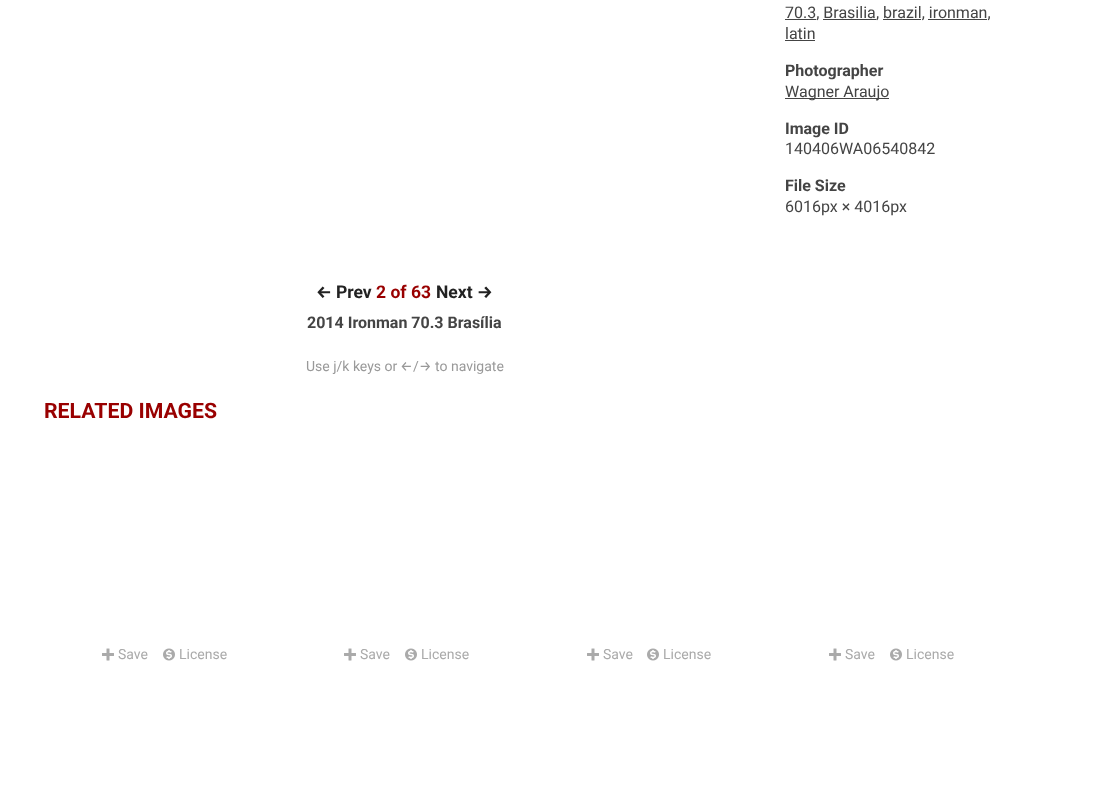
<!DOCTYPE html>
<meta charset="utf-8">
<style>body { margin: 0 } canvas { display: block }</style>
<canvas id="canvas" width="1096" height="800"></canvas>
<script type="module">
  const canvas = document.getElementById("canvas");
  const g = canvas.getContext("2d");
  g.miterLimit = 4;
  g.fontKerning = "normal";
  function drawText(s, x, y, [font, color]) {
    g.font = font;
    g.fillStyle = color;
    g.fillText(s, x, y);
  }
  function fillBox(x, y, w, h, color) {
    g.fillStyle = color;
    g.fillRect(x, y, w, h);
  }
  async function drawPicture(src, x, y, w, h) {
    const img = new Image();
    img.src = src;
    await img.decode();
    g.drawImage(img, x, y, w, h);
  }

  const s1 = ["16px Roboto", "#444444"];
  const s2 = ["bold 16px Roboto", "#444444"];
  const s3 = ["bold 17.5px Fira Sans", "#222222"];
  const s4 = ["bold 17.5px Roboto", "#222222"];
  const s5 = ["bold 17.5px Roboto", "#990000"];
  const s6 = ["14px Roboto", "#999999"];
  const s7 = ["14px Fira Sans", "#999999"];
  const s8 = ["bold 21.25px Roboto", "#990000"];
  const s9 = ["14px Roboto", "#AAAAAA"];

  fillBox(0, 0, 1096, 800, "#FFFFFF");
  fillBox(785, 19, 31, 1, "#444444");
  drawText("70.3, Brasilia", 785, 18, s1);
  fillBox(823, 19, 53, 1, "#444444");
  drawText(", brazil, ironman,", 876, 18, s1);
  fillBox(883, 19, 38, 1, "#444444");
  fillBox(928, 19, 59, 1, "#444444");
  drawText("latin", 785, 39, s1);
  fillBox(785, 40, 30, 1, "#444444");
  drawText("Photographer", 785, 76, s2);
  fillBox(785, 98, 104, 1, "#444444");
  drawText("Wagner Araujo", 785, 97, s1);
  drawText("Image ID", 785, 134, s2);
  drawText("140406WA06540842", 785, 154, s1);
  drawText("File Size", 785, 191, s2);
  drawText("6016px × 4016px", 785, 212, s1);
  drawText("←", 316, 298, s3);
  drawText("Prev", 336, 298, s4);
  drawText("2 of 63", 376, 298, s5);
  drawText("Next", 436, 298, s4);
  drawText("→", 477, 298, s3);
  drawText("2014 Ironman 70.3 Brasília", 307, 328, s2);
  drawText("Use j/k keys or", 306, 371, s6);
  drawText("←", 400, 371, s7);
  drawText("/", 413, 371, s6);
  drawText("→", 419, 371, s7);
  drawText("to navigate", 435, 371, s6);
  drawText("RELATED IMAGES", 44, 418, s8);
  await drawPicture("pic1.png", 102, 648, 12, 13);
  drawText("Save", 118, 659, s9);
  await drawPicture("pic2.png", 163, 648, 12, 13);
  drawText("License", 179, 659, s9);
  await drawPicture("pic1.png", 344, 648, 12, 13);
  drawText("Save", 360, 659, s9);
  await drawPicture("pic2.png", 405, 648, 12, 13);
  drawText("License", 421, 659, s9);
  await drawPicture("pic1.png", 587, 648, 12, 13);
  drawText("Save", 603, 659, s9);
  await drawPicture("pic2.png", 647, 648, 12, 13);
  drawText("License", 663, 659, s9);
  await drawPicture("pic1.png", 829, 648, 12, 13);
  drawText("Save", 845, 659, s9);
  await drawPicture("pic2.png", 890, 648, 12, 13);
  drawText("License", 906, 659, s9);
</script>
